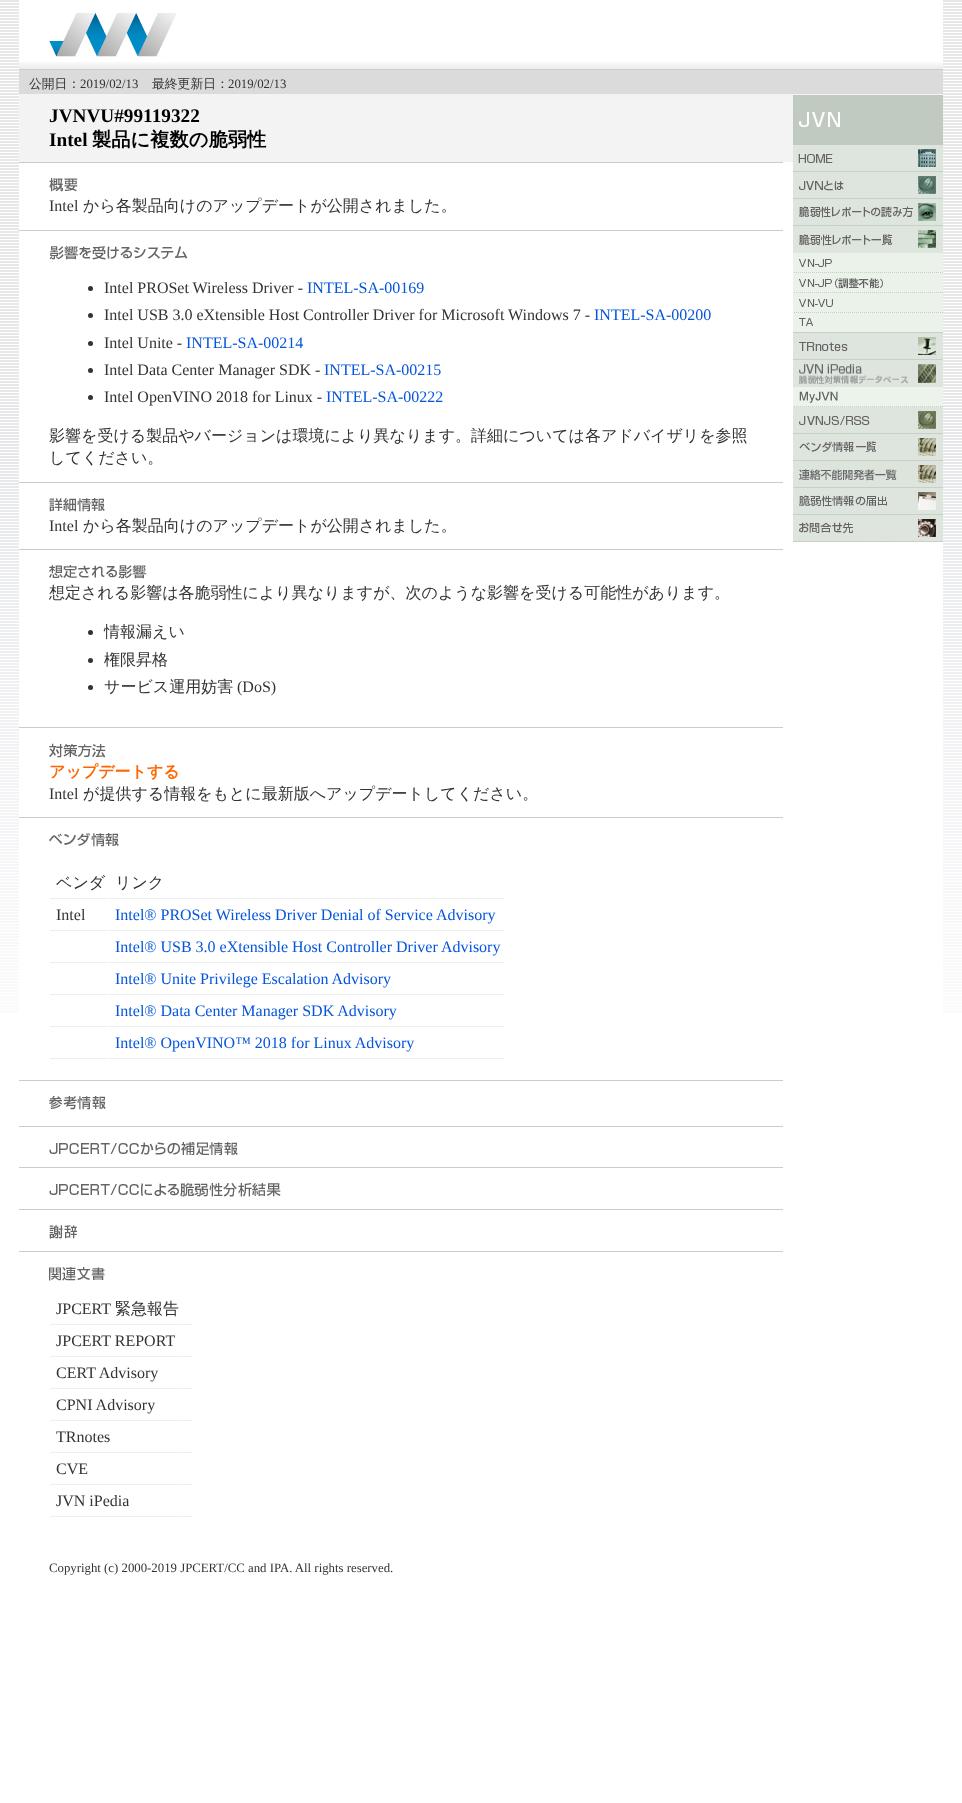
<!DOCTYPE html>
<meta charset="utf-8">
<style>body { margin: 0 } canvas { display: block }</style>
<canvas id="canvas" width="962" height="1803"></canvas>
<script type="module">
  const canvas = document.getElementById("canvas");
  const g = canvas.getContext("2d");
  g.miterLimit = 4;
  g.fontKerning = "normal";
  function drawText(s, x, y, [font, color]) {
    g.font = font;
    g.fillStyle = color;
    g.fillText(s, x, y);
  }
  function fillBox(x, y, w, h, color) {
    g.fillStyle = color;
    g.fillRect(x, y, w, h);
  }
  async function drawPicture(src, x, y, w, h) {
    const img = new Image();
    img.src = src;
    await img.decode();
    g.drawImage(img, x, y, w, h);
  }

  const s1 = ["500 12.8px WenQuanYi Zen Hei", "#333333"];
  const s2 = ["12.8px Liberation Serif", "#333333"];
  const s3 = ["bold 19.25px Liberation Serif", "#000000"];
  const s4 = ["bold 19.25px WenQuanYi Zen Hei", "#000000"];
  const s5 = ["16px Liberation Serif", "#333333"];
  const s6 = ["500 16px WenQuanYi Zen Hei", "#333333"];
  const s7 = ["16px Liberation Serif", "#0455DC"];
  const s8 = ["bold 16px WenQuanYi Zen Hei", "#FF6600"];

  fillBox(0, 0, 962, 1803, "#FFFFFF");
  await drawPicture("pic1.png", 0, 0, 962, 1013);
  fillBox(19, 0, 924, 62, "#FFFFFF");
  await drawPicture("pic2.png", 19, 62, 924, 8);
  await drawPicture("pic3.png", 49, 12, 128, 45);
  fillBox(19, 162, 924, 851, "#FFFFFF");
  fillBox(19, 70, 924, 24, "#DBDBDB");
  drawText("公開日：", 29, 88, s1);
  drawText("2019/02/13", 80, 88, s2);
  drawText("最終更新日：", 152, 88, s1);
  drawText("2019/02/13", 228, 88, s2);
  fillBox(19, 94, 924, 68, "#F3F3F3");
  drawText("JVNVU#99119322", 49, 122, s3);
  drawText("Intel", 49, 146, s3);
  drawText("製品に複数の脆弱性", 92, 146, s4);
  fillBox(19, 162, 764, 1, "#CCCCCC");
  await drawPicture("pic4.png", 49, 178, 29, 14);
  drawText("Intel", 49, 211, s5);
  drawText("から各製品向けのアップデートが公開されました。", 83, 211, s6);
  fillBox(19, 230, 764, 1, "#CCCCCC");
  await drawPicture("pic5.png", 49, 246, 139, 14);
  g.fillStyle = "#333333";
  g.beginPath();
  g.arc(90.5, 288.5, 2.5, 0, Math.PI * 2);
  g.fill();
  drawText("Intel PROSet Wireless Driver -", 104, 293, s5);
  drawText("INTEL-SA-00169", 307, 293, s7);
  g.fillStyle = "#333333";
  g.beginPath();
  g.arc(90.5, 315.5, 2.5, 0, Math.PI * 2);
  g.fill();
  drawText("Intel USB 3.0 eXtensible Host Controller Driver for Microsoft Windows 7 -", 104, 320, s5);
  drawText("INTEL-SA-00200", 594, 320, s7);
  g.fillStyle = "#333333";
  g.beginPath();
  g.arc(90.5, 343.5, 2.5, 0, Math.PI * 2);
  g.fill();
  drawText("Intel Unite -", 104, 348, s5);
  drawText("INTEL-SA-00214", 186, 348, s7);
  g.fillStyle = "#333333";
  g.beginPath();
  g.arc(90.5, 370.5, 2.5, 0, Math.PI * 2);
  g.fill();
  drawText("Intel Data Center Manager SDK -", 104, 375, s5);
  drawText("INTEL-SA-00215", 324, 375, s7);
  g.fillStyle = "#333333";
  g.beginPath();
  g.arc(90.5, 397.5, 2.5, 0, Math.PI * 2);
  g.fill();
  drawText("Intel OpenVINO 2018 for Linux -", 104, 402, s5);
  drawText("INTEL-SA-00222", 326, 402, s7);
  drawText("影響を受ける製品やバージョンは環境により異なります。詳細については各アドバイザリを参照", 49, 441, s6);
  drawText("してください。", 49, 463, s6);
  fillBox(19, 482, 764, 1, "#CCCCCC");
  await drawPicture("pic6.png", 49, 498, 56, 14);
  drawText("Intel", 49, 531, s5);
  drawText("から各製品向けのアップデートが公開されました。", 83, 531, s6);
  fillBox(19, 549, 764, 1, "#CCCCCC");
  await drawPicture("pic7.png", 49, 565, 98, 14);
  drawText("想定される影響は各脆弱性により異なりますが、次のような影響を受ける可能性があります。", 49, 598, s6);
  g.beginPath();
  g.arc(90.5, 632.5, 2.5, 0, Math.PI * 2);
  g.fill();
  drawText("情報漏えい", 104, 637, s6);
  g.beginPath();
  g.arc(90.5, 660.5, 2.5, 0, Math.PI * 2);
  g.fill();
  drawText("権限昇格", 104, 665, s6);
  g.beginPath();
  g.arc(90.5, 687.5, 2.5, 0, Math.PI * 2);
  g.fill();
  drawText("サービス運用妨害", 104, 692, s6);
  drawText("(DoS)", 237, 692, s5);
  fillBox(19, 727, 764, 1, "#CCCCCC");
  await drawPicture("pic8.png", 49, 743, 57, 15);
  drawText("アップデートする", 49, 777, s8);
  drawText("Intel", 49, 799, s5);
  drawText("が提供する情報をもとに最新版へアップデートしてください。", 83, 799, s6);
  fillBox(19, 817, 764, 1, "#CCCCCC");
  await drawPicture("pic9.png", 49, 833, 70, 14);
  fillBox(50, 898, 58, 1, "#EEEEEE");
  drawText("ベンダ", 56, 888, s6);
  fillBox(109, 898, 395, 1, "#EEEEEE");
  drawText("リンク", 115, 888, s6);
  fillBox(50, 930, 58, 1, "#EEEEEE");
  drawText("Intel", 56, 920, s5);
  fillBox(109, 930, 395, 1, "#EEEEEE");
  drawText("Intel® PROSet Wireless Driver Denial of Service Advisory", 115, 920, s7);
  fillBox(109, 962, 395, 1, "#EEEEEE");
  drawText("Intel® USB 3.0 eXtensible Host Controller Driver Advisory", 115, 952, s7);
  fillBox(50, 962, 58, 1, "#EEEEEE");
  fillBox(109, 994, 395, 1, "#EEEEEE");
  drawText("Intel® Unite Privilege Escalation Advisory", 115, 984, s7);
  fillBox(50, 994, 58, 1, "#EEEEEE");
  fillBox(109, 1026, 395, 1, "#EEEEEE");
  drawText("Intel® Data Center Manager SDK Advisory", 115, 1016, s7);
  fillBox(50, 1026, 58, 1, "#EEEEEE");
  fillBox(109, 1058, 395, 1, "#EEEEEE");
  drawText("Intel® OpenVINO™ 2018 for Linux Advisory", 115, 1048, s7);
  fillBox(50, 1058, 58, 1, "#EEEEEE");
  fillBox(19, 1080, 764, 1, "#CCCCCC");
  await drawPicture("pic10.png", 49, 1096, 57, 14);
  fillBox(19, 1126, 764, 1, "#CCCCCC");
  await drawPicture("pic11.png", 49, 1142, 189, 13);
  fillBox(19, 1167, 764, 1, "#CCCCCC");
  await drawPicture("pic12.png", 49, 1183, 232, 14);
  fillBox(19, 1209, 764, 1, "#CCCCCC");
  await drawPicture("pic13.png", 49, 1225, 28, 14);
  fillBox(19, 1251, 764, 1, "#CCCCCC");
  await drawPicture("pic14.png", 49, 1267, 56, 14);
  fillBox(50, 1324, 132, 1, "#EEEEEE");
  drawText("JPCERT", 56, 1314, s5);
  drawText("緊急報告", 115, 1314, s6);
  fillBox(183, 1324, 9, 1, "#EEEEEE");
  fillBox(50, 1356, 132, 1, "#EEEEEE");
  drawText("JPCERT REPORT", 56, 1346, s5);
  fillBox(183, 1356, 9, 1, "#EEEEEE");
  fillBox(50, 1388, 132, 1, "#EEEEEE");
  drawText("CERT Advisory", 56, 1378, s5);
  fillBox(183, 1388, 9, 1, "#EEEEEE");
  fillBox(50, 1420, 132, 1, "#EEEEEE");
  drawText("CPNI Advisory", 56, 1410, s5);
  fillBox(183, 1420, 9, 1, "#EEEEEE");
  fillBox(50, 1452, 132, 1, "#EEEEEE");
  drawText("TRnotes", 56, 1442, s5);
  fillBox(183, 1452, 9, 1, "#EEEEEE");
  fillBox(50, 1484, 132, 1, "#EEEEEE");
  drawText("CVE", 56, 1474, s5);
  fillBox(183, 1484, 9, 1, "#EEEEEE");
  fillBox(50, 1516, 132, 1, "#EEEEEE");
  drawText("JVN iPedia", 56, 1506, s5);
  fillBox(183, 1516, 9, 1, "#EEEEEE");
  await drawPicture("pic15.png", 793, 95, 150, 50);
  await drawPicture("pic16.png", 793, 145, 150, 27);
  await drawPicture("pic17.png", 793, 172, 150, 27);
  await drawPicture("pic18.png", 793, 199, 150, 27);
  await drawPicture("pic19.png", 793, 226, 150, 27);
  await drawPicture("pic20.png", 793, 253, 150, 20);
  await drawPicture("pic21.png", 793, 273, 150, 20);
  await drawPicture("pic22.png", 793, 293, 150, 20);
  await drawPicture("pic23.png", 793, 313, 150, 20);
  await drawPicture("pic24.png", 793, 333, 150, 27);
  await drawPicture("pic25.png", 793, 360, 150, 27);
  await drawPicture("pic26.png", 793, 387, 150, 20);
  await drawPicture("pic27.png", 793, 407, 150, 27);
  await drawPicture("pic28.png", 793, 434, 150, 27);
  await drawPicture("pic29.png", 793, 461, 150, 27);
  await drawPicture("pic30.png", 793, 488, 150, 27);
  await drawPicture("pic31.png", 793, 515, 150, 27);
  drawText("Copyright (c) 2000-2019 JPCERT/CC and IPA. All rights reserved.", 49, 1572, s2);
</script>
